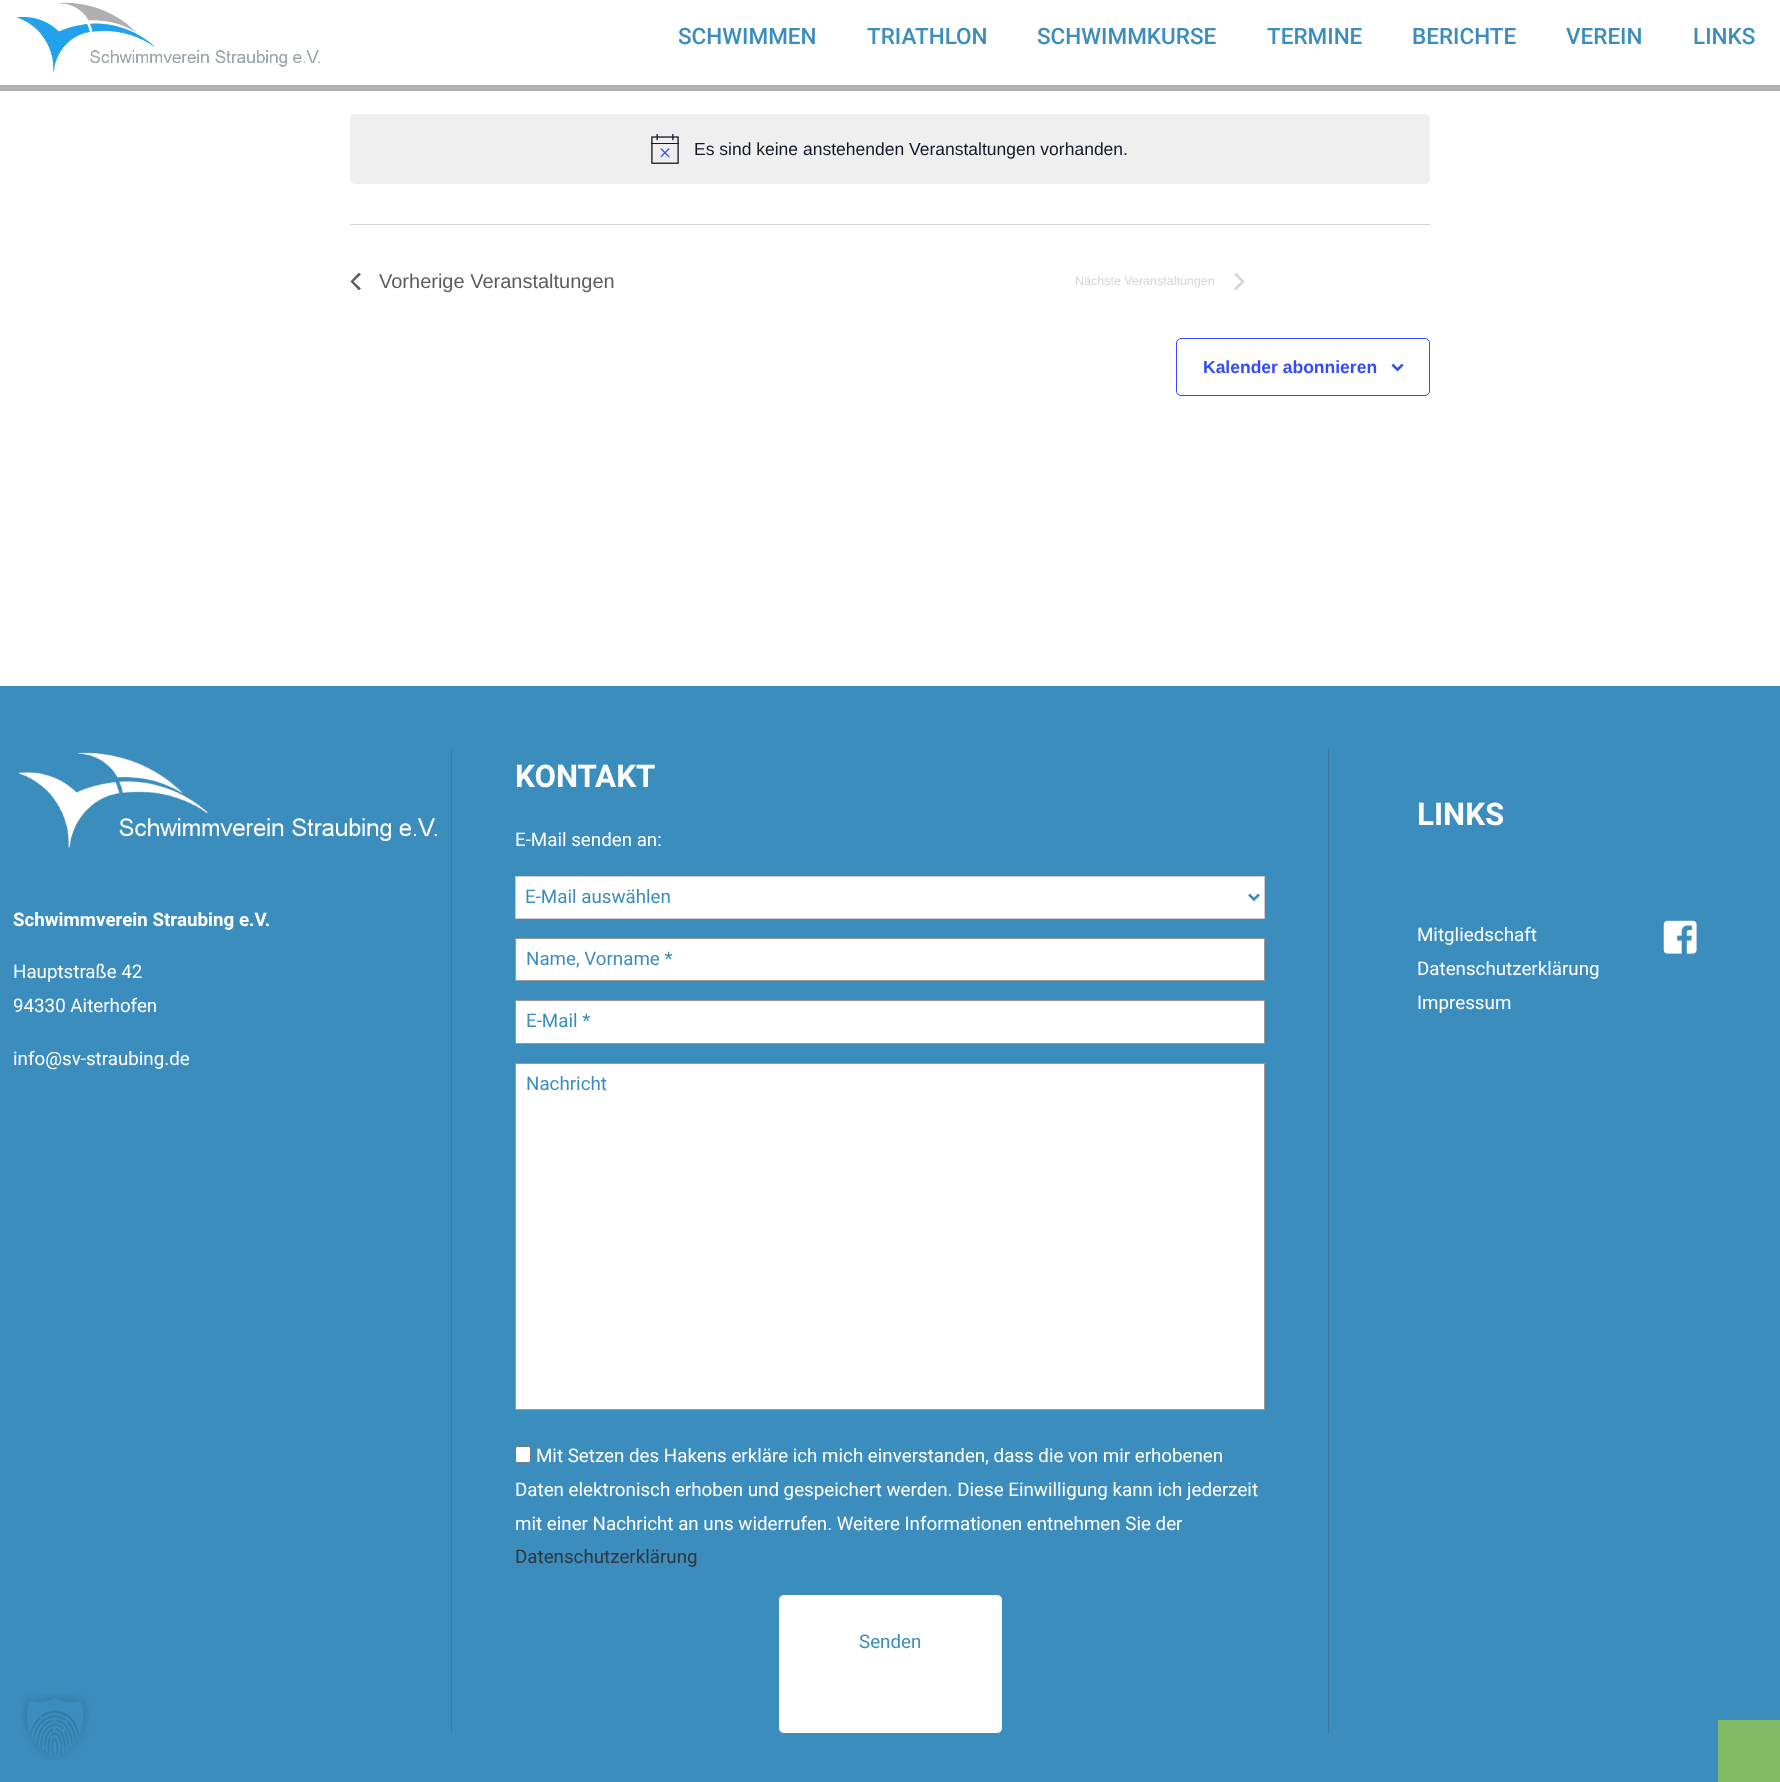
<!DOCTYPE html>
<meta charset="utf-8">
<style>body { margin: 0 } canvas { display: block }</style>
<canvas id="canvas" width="1780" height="1782"></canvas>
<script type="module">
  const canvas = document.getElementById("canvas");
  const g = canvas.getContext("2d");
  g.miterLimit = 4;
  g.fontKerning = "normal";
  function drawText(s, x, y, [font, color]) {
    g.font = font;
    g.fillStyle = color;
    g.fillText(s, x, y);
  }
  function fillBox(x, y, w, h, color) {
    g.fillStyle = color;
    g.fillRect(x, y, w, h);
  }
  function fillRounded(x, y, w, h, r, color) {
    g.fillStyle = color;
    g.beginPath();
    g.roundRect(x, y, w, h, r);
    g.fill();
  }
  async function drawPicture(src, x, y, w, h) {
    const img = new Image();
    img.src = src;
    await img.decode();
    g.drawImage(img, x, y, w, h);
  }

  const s1 = ["500 22.5px Roboto", "#3B8DBD"];
  const s2 = ["17.5px Liberation Sans", "#141827"];
  const s3 = ["20px Liberation Sans", "#5D5D5D"];
  const s4 = ["12.5px Liberation Sans", "#D5D5D5"];
  const s5 = ["bold 17.5px Liberation Sans", "#334AFF"];
  const s6 = ["bold 18.75px Roboto", "#FFFFFF"];
  const s7 = ["18.75px Roboto", "#FFFFFF"];
  const s8 = ["bold 31.25px Roboto", "#FFFFFF"];
  const s9 = ["18.75px Roboto", "#3B8DBD"];
  const s10 = ["18.75px Roboto", "#33363B"];

  fillBox(0, 0, 1780, 1782, "#FFFFFF");
  await drawPicture("pic1.png", 17, 2, 303, 70);
  drawText("SCHWIMMEN", 678, 44, s1);
  drawText("TRIATHLON", 867, 44, s1);
  drawText("SCHWIMMKURSE", 1037, 44, s1);
  drawText("TERMINE", 1267, 44, s1);
  drawText("BERICHTE", 1412, 44, s1);
  drawText("VEREIN", 1566, 44, s1);
  drawText("LINKS", 1693, 44, s1);
  fillBox(0, 85, 1780, 6, "#B1AFB0");
  fillRounded(350, 114, 1080, 70, 5, "#EFEFF0");
  await drawPicture("pic2.png", 651, 134, 28, 30);
  drawText("Es sind keine anstehenden Veranstaltungen vorhanden.", 694, 155, s2);
  fillBox(350, 224, 1080, 1, "#D5D5D5");
  g.save();
  g.beginPath();
  g.rect(350, 273, 11, 17);
  g.clip();
  g.fillStyle = "#5D5D5D";
  g.beginPath();
  g.moveTo(361, 288.5);
  g.lineTo(359, 290.5);
  g.lineTo(350.5, 281.5);
  g.lineTo(359, 272.5);
  g.lineTo(361, 274.5);
  g.lineTo(353.5, 281.5);
  g.closePath();
  g.fill();
  g.restore();
  drawText("Vorherige Veranstaltungen", 379, 288, s3);
  drawText("Nächste Veranstaltungen", 1075, 285, s4);
  g.save();
  g.beginPath();
  g.rect(1234, 273, 11, 17);
  g.clip();
  g.beginPath();
  g.moveTo(1234, 274.5);
  g.lineTo(1236, 272.5);
  g.lineTo(1244.5, 281.5);
  g.lineTo(1236, 290.5);
  g.lineTo(1234, 288.5);
  g.lineTo(1241.5, 281.5);
  g.closePath();
  g.fill();
  g.restore();
  g.beginPath();
  g.roundRect(1176.5, 338.5, 253, 57, 4.5);
  g.strokeStyle = "#334AFF";
  g.stroke();
  drawText("Kalender abonnieren", 1203, 373, s5);
  await drawPicture("pic3.png", 1391, 364, 13, 7);
  fillBox(0, 686, 1780, 1096, "#3B8DBD");
  await drawPicture("pic4.png", 19, 752, 418, 96);
  drawText("Schwimmverein Straubing e.V.", 13, 926, s6);
  drawText("Hauptstraße 42", 13, 978, s7);
  drawText("94330 Aiterhofen", 13, 1012, s7);
  drawText("info@sv-straubing.de", 13, 1065, s7);
  fillBox(1328, 749, 1, 985, "#397CA3");
  fillBox(451, 749, 1, 985, "#397CA3");
  drawText("KONTAKT", 515, 787, s8);
  drawText("E-Mail senden an:", 515, 846, s7);
  g.beginPath();
  g.rect(515.5, 876.5, 749, 42);
  g.fill();
  g.strokeStyle = "#CCCCCC";
  g.stroke();
  g.beginPath();
  g.moveTo(1249, 894.5);
  g.lineTo(1254, 899.5);
  g.lineTo(1259, 894.5);
  g.strokeStyle = "#3B8DBD";
  g.lineWidth = 2.5;
  g.stroke();
  drawText("E-Mail auswählen", 525, 903, s9);
  g.fillStyle = "#FFFFFF";
  g.beginPath();
  g.rect(515.5, 938.5, 749, 42);
  g.fill();
  g.strokeStyle = "#999999";
  g.lineWidth = 1;
  g.stroke();
  drawText("Name, Vorname *", 526, 965, s9);
  g.fillStyle = "#FFFFFF";
  g.beginPath();
  g.rect(515.5, 1000.5, 749, 43);
  g.fill();
  g.stroke();
  drawText("E-Mail *", 526, 1027, s9);
  g.fillStyle = "#FFFFFF";
  g.beginPath();
  g.rect(515.5, 1063.5, 749, 346);
  g.fill();
  g.stroke();
  drawText("Nachricht", 526, 1090, s9);
  g.fillStyle = "#FFFFFF";
  g.beginPath();
  g.roundRect(515.5, 1446.5, 15, 16, 2);
  g.fill();
  g.strokeStyle = "#767676";
  g.stroke();
  drawText("Mit Setzen des Hakens erkläre ich mich einverstanden, dass die von mir erhobenen", 536, 1462, s7);
  drawText("Daten elektronisch erhoben und gespeichert werden. Diese Einwilligung kann ich jederzeit", 515, 1496, s7);
  drawText("mit einer Nachricht an uns widerrufen. Weitere Informationen entnehmen Sie der", 515, 1530, s7);
  drawText("Datenschutzerklärung", 515, 1563, s10);
  g.fillStyle = "#FFFFFF";
  g.beginPath();
  g.roundRect(778.5, 1594.5, 224, 139, 5.5);
  g.fill();
  g.strokeStyle = "#3B8DBD";
  g.stroke();
  drawText("Senden", 859, 1648, s9);
  drawText("LINKS", 1417, 825, s8);
  drawText("Mitgliedschaft", 1417, 941, s7);
  drawText("Datenschutzerklärung", 1417, 975, s7);
  drawText("Impressum", 1417, 1009, s7);
  await drawPicture("pic5.png", 1663, 920, 34, 34);
  await drawPicture("pic6.png", 21, 1694, 68, 66);
  fillBox(1718, 1720, 62, 62, "#82B965");
</script>
